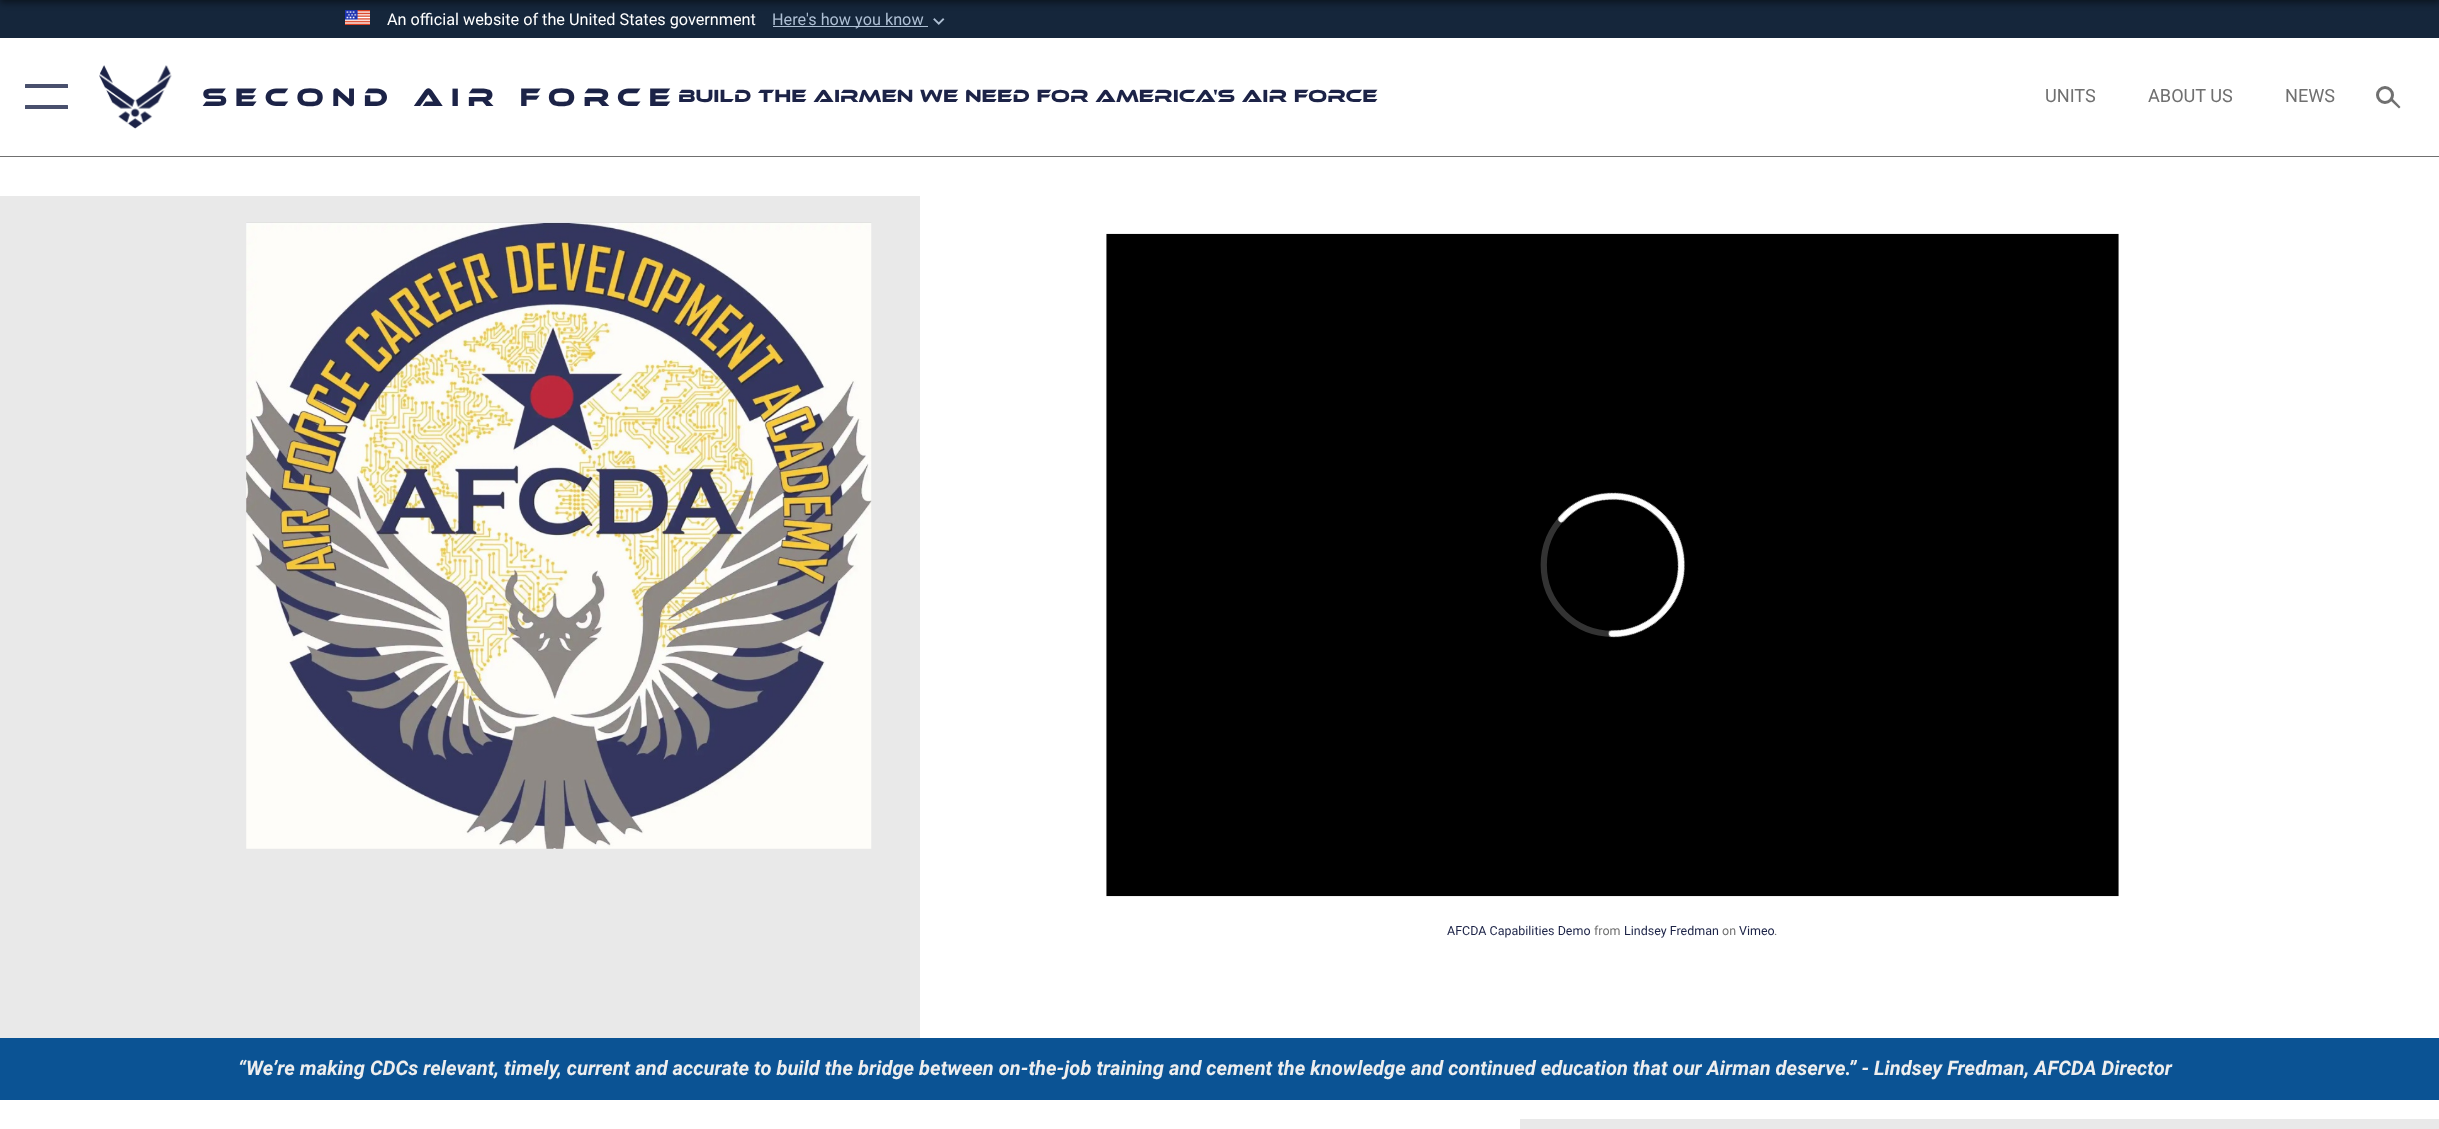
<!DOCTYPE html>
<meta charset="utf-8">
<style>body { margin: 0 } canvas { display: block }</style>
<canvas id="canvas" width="2439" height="1129"></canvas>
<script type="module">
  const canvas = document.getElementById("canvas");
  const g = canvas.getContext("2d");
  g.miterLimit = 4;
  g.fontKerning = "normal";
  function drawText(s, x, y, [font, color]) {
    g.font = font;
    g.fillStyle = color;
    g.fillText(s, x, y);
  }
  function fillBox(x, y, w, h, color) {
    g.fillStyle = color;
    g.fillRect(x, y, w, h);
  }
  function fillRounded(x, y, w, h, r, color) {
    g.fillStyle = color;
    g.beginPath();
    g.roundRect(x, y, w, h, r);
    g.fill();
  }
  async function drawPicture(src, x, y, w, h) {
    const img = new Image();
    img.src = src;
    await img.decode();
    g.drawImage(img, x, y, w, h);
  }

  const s1 = ["16.25px Roboto", "#FFFFFF"];
  const s2 = ["16.25px Roboto", "#AEBFD4"];
  const s3 = ["26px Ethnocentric", "#1C2347"];
  const s4 = ["18.15px Ethnocentric", "#1C2347"];
  const s5 = ["18.15px Roboto", "#707070"];
  const s6 = ["12.5px Roboto", "#1C2347"];
  const s7 = ["12.5px Roboto", "#707070"];
  const s8 = ["italic bold 20px Roboto", "#EEEEEE"];

  fillBox(0, 0, 2439, 1129, "#FFFFFF");
  fillBox(0, 0, 2439, 38, "#15263B");
  await drawPicture("pic1.png", 345, 10, 25, 15);
  drawText("An official website of the United States government", 387, 25, s1);
  fillBox(773, 26, 155, 1, "#AEBFD4");
  drawText("Here's how you know", 772, 25, s2);
  await drawPicture("pic2.png", 933, 18, 12, 7);
  g.fillStyle = "rgba(2, 4, 6, 0.5)";
  g.filter = "blur(3px)";
  g.beginPath();
  g.rect(0, -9, 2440, 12);
  g.fill();
  g.filter = "none";
  fillBox(0, 156, 2439, 1, "#707070");
  fillRounded(25, 84, 43, 4, 0.5, "#49506D");
  fillRounded(25, 105, 43, 4, 0.5, "#49506D");
  await drawPicture("pic3.png", 99, 65, 73, 64);
  g.letterSpacing = "7.75px";
  drawText("Second Air Force", 202, 106, s3);
  g.letterSpacing = "0px";
  g.wordSpacing = "-0.25px";
  drawText("Build the Airmen we need for America's Air Force", 678, 102, s4);
  g.wordSpacing = "0px";
  drawText("UNITS", 2045, 102, s5);
  drawText("ABOUT US", 2148, 102, s5);
  drawText("NEWS", 2285, 102, s5);
  g.beginPath();
  g.arc(2385, 95, 7.5, 0, Math.PI * 2);
  g.strokeStyle = "#707070";
  g.lineWidth = 3;
  g.stroke();
  g.beginPath();
  g.moveTo(2392, 98);
  g.lineTo(2400.5, 107);
  g.lineTo(2399, 108.5);
  g.lineTo(2390, 100);
  g.closePath();
  g.fill();
  fillBox(0, 196, 920, 842, "#E9E9E9");
  await drawPicture("pic4.png", 246, 222, 626, 627);
  await drawPicture("pic5.png", 1106, 233, 1013, 664);
  drawText("AFCDA Capabilities Demo", 1447, 935, s6);
  drawText("from", 1594, 935, s7);
  drawText("Lindsey Fredman", 1624, 935, s6);
  drawText("on", 1722, 935, s7);
  drawText("Vimeo", 1739, 935, s6);
  drawText(".", 1774, 935, s7);
  fillBox(0, 1038, 2439, 62, "#0B5394");
  drawText("“We’re making CDCs relevant, timely, current and accurate to build the bridge between on-the-job training and cement the knowledge and continued education that our Airman deserve.” - Lindsey Fredman, AFCDA Director", 238, 1075, s8);
  fillBox(1520, 1119, 919, 10, "#E9E9E9");
</script>
